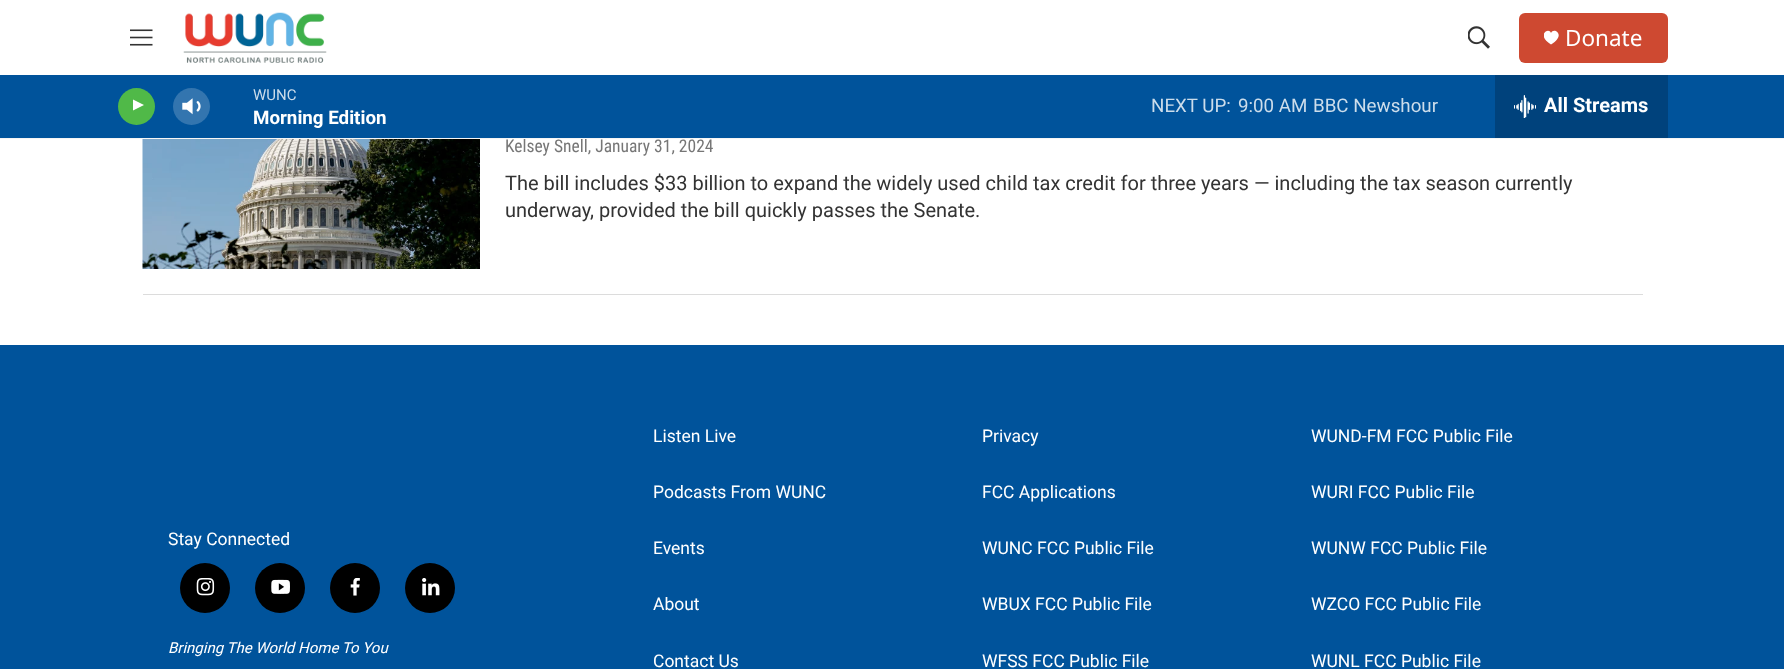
<!DOCTYPE html>
<meta charset="utf-8">
<style>body { margin: 0 } canvas { display: block }</style>
<canvas id="canvas" width="1784" height="669"></canvas>
<script type="module">
  const canvas = document.getElementById("canvas");
  const g = canvas.getContext("2d");
  g.miterLimit = 4;
  g.fontKerning = "normal";
  function drawText(s, x, y, [font, color]) {
    g.font = font;
    g.fillStyle = color;
    g.fillText(s, x, y);
  }
  function fillBox(x, y, w, h, color) {
    g.fillStyle = color;
    g.fillRect(x, y, w, h);
  }
  function fillRounded(x, y, w, h, r, color) {
    g.fillStyle = color;
    g.beginPath();
    g.roundRect(x, y, w, h, r);
    g.fill();
  }
  async function drawPicture(src, x, y, w, h) {
    const img = new Image();
    img.src = src;
    await img.decode();
    g.drawImage(img, x, y, w, h);
  }

  const s1 = ["17.5px Roboto Condensed", "#767676"];
  const s2 = ["22.5px Noto Sans", "#FFFFFF"];
  const s3 = ["15px Roboto", "#CCDDEB"];
  const s4 = ["bold 18.75px Roboto", "#FFFFFF"];
  const s5 = ["18.75px Roboto", "#CCDDEB"];
  const s6 = ["bold 20px Roboto", "#FFFFFF"];
  const s7 = ["20px Roboto", "#333333"];
  const s8 = ["17.5px Roboto", "#FFFFFF"];
  const s9 = ["italic 15px Roboto", "#FFFFFF"];

  fillBox(0, 0, 1784, 669, "#FFFFFF");
  drawText("Kelsey Snell, January 31, 2024", 505, 152, s1);
  fillBox(0, 138, 1784, 1, "#F5F5F5");
  await drawPicture("pic1.png", 130, 29, 23, 17);
  await drawPicture("pic2.png", 183, 12, 144, 51);
  await drawPicture("pic3.png", 1468, 26, 22, 23);
  fillRounded(1519, 13, 149, 50, 6, "#CE4931");
  g.save();
  g.beginPath();
  g.rect(1544, 30, 15, 15);
  g.clip();
  g.fillStyle = "#FFFFFF";
  g.beginPath();
  g.moveTo(1551, 33);
  g.bezierCurveTo(1549, 26.5, 1535.5, 35, 1551, 44.5);
  g.bezierCurveTo(1567, 35, 1553.5, 26.5, 1551, 33);
  g.closePath();
  g.fill();
  g.restore();
  drawText("Donate", 1565, 46, s2);
  fillBox(0, 75, 1784, 63, "#00539B");
  g.fillStyle = "#50B948";
  g.beginPath();
  g.arc(136.5, 106.5, 18.5, 0, Math.PI * 2);
  g.fill();
  g.save();
  g.beginPath();
  g.rect(133, 98, 14, 18);
  g.clip();
  g.fillStyle = "#FFFFFF";
  g.beginPath();
  g.moveTo(132, 99);
  g.lineTo(144, 105);
  g.lineTo(132, 111);
  g.closePath();
  g.fill();
  g.restore();
  await drawPicture("pic4.png", 182, 98, 19, 17);
  g.fillStyle = "rgba(255, 255, 255, 0.2)";
  g.beginPath();
  g.arc(191.5, 106.5, 18.5, 0, Math.PI * 2);
  g.fill();
  drawText("WUNC", 253, 100, s3);
  drawText("Morning Edition", 253, 124, s4);
  drawText("NEXT UP:", 1151, 112, s5);
  drawText("9:00 AM", 1238, 112, s5);
  drawText("BBC Newshour", 1313, 112, s5);
  fillBox(1495, 75, 173, 63, "#00427C");
  await drawPicture("pic5.png", 1514, 95, 22, 23);
  drawText("All Streams", 1544, 112, s6);
  fillBox(143, 294, 1500, 1, "#DCDCDC");
  await drawPicture("pic6.png", 142, 139, 338, 130);
  drawText("The bill includes $33 billion to expand the widely used child tax credit for three years — including the tax season currently", 505, 190, s7);
  drawText("underway, provided the bill quickly passes the Senate.", 505, 217, s7);
  fillBox(0, 345, 1784, 324, "#00539B");
  drawText("Stay Connected", 168, 545, s8);
  g.fillStyle = "#000000";
  g.beginPath();
  g.arc(205, 588, 25, 0, Math.PI * 2);
  g.fill();
  await drawPicture("pic7.png", 196, 578, 19, 18);
  g.beginPath();
  g.arc(280, 588, 25, 0, Math.PI * 2);
  g.fill();
  await drawPicture("pic8.png", 271, 579, 19, 15);
  g.beginPath();
  g.arc(355, 588, 25, 0, Math.PI * 2);
  g.fill();
  await drawPicture("pic9.png", 350, 578, 10, 18);
  g.beginPath();
  g.arc(430, 588, 25, 0, Math.PI * 2);
  g.fill();
  await drawPicture("pic10.png", 422, 578, 18, 18);
  drawText("Bringing The World Home To You", 168, 653, s9);
  drawText("Listen Live", 653, 442, s8);
  drawText("Privacy", 982, 442, s8);
  drawText("WUND-FM FCC Public File", 1311, 442, s8);
  drawText("Podcasts From WUNC", 653, 498, s8);
  drawText("FCC Applications", 982, 498, s8);
  drawText("WURI FCC Public File", 1311, 498, s8);
  drawText("Events", 653, 554, s8);
  drawText("WUNC FCC Public File", 982, 554, s8);
  drawText("WUNW FCC Public File", 1311, 554, s8);
  drawText("About", 653, 610, s8);
  drawText("WBUX FCC Public File", 982, 610, s8);
  drawText("WZCO FCC Public File", 1311, 610, s8);
  drawText("Contact Us", 653, 667, s8);
  drawText("WFSS FCC Public File", 982, 667, s8);
  drawText("WUNL FCC Public File", 1311, 667, s8);
</script>
